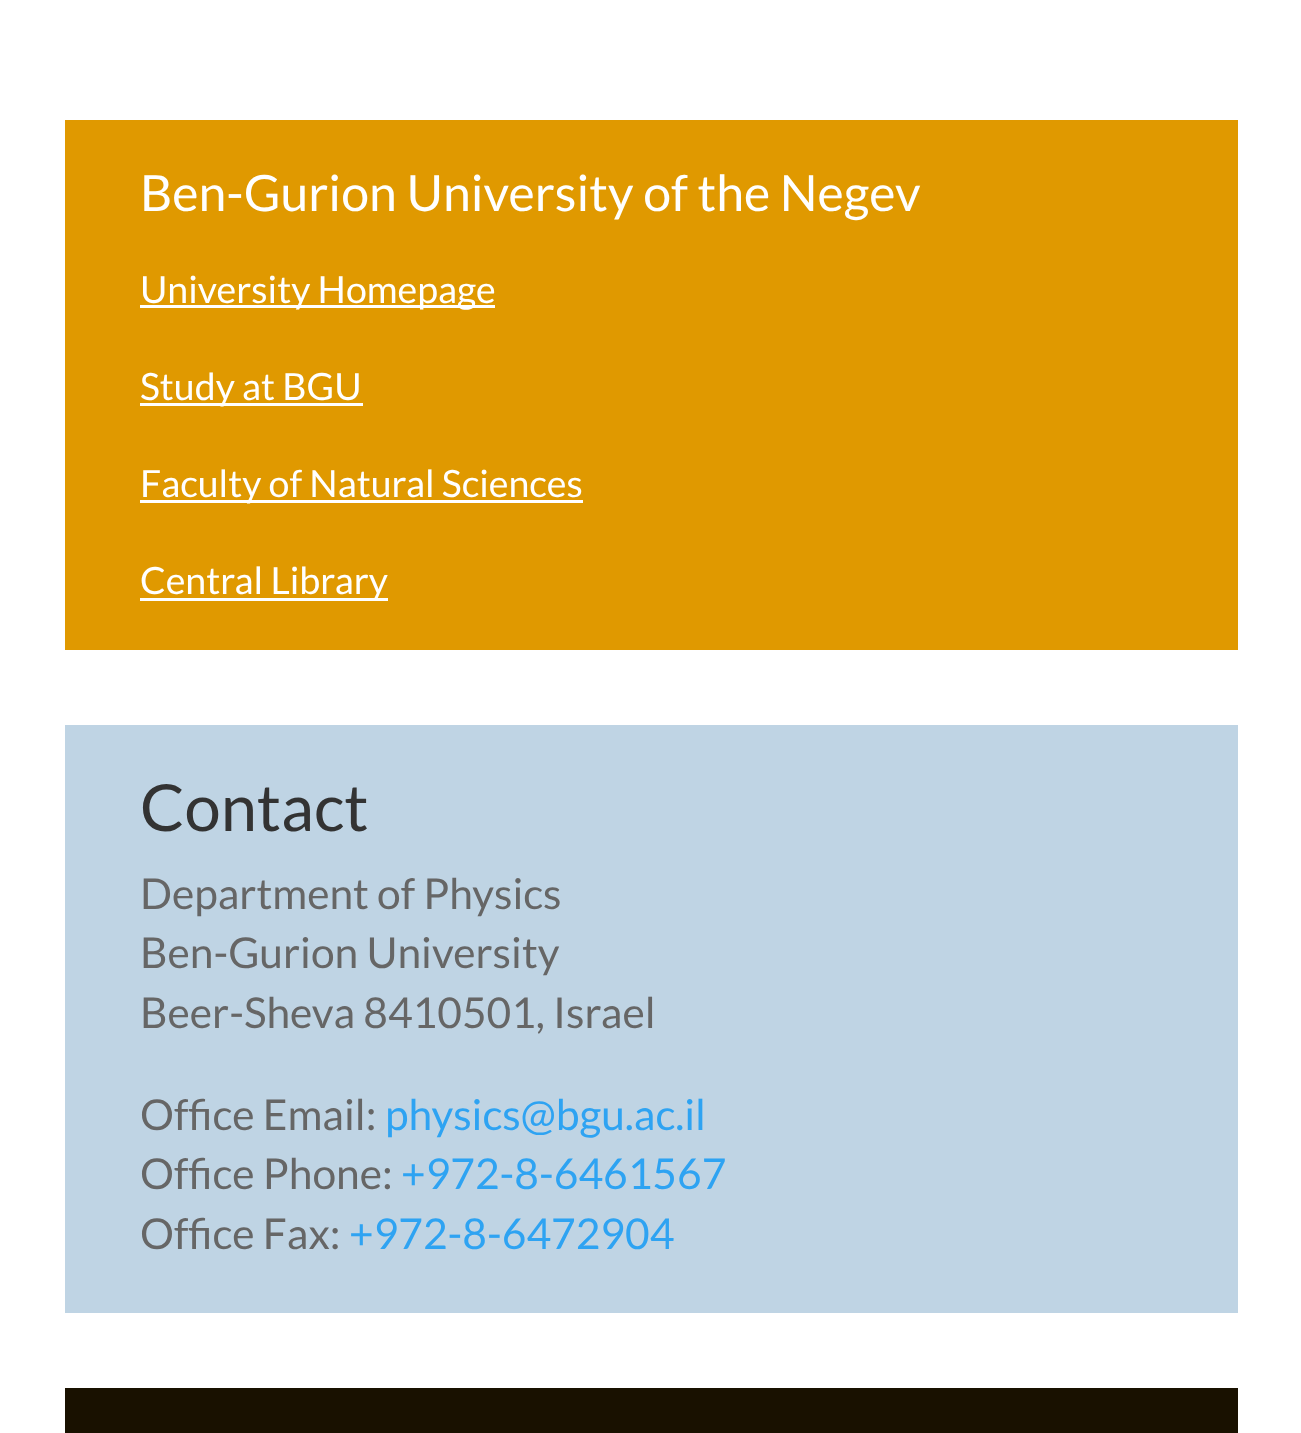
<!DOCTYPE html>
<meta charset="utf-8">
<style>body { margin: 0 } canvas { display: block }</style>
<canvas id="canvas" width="1301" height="1433"></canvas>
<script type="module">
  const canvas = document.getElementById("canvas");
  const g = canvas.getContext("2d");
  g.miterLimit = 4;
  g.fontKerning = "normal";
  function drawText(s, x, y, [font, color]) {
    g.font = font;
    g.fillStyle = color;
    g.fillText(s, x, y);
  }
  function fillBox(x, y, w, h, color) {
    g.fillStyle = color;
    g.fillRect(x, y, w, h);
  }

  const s1 = ["50px Lato", "#FFFFFF"];
  const s2 = ["37.5px Lato", "#FFFFFF"];
  const s3 = ["65px Lato", "#333333"];
  const s4 = ["42.5px Lato", "#666666"];
  const s5 = ["42.5px Lato", "#2EA3F2"];

  fillBox(0, 0, 1301, 1433, "#FFFFFF");
  fillBox(65, 120, 1173, 530, "#E09900");
  drawText("Ben-Gurion University of the Negev", 140, 211, s1);
  fillBox(140, 305, 355, 3, "#FFFFFF");
  drawText("University Homepage", 140, 303, s2);
  fillBox(140, 403, 223, 3, "#FFFFFF");
  drawText("Study at BGU", 140, 400, s2);
  fillBox(140, 500, 443, 3, "#FFFFFF");
  drawText("Faculty of Natural Sciences", 140, 497, s2);
  fillBox(140, 598, 248, 3, "#FFFFFF");
  drawText("Central Library", 140, 594, s2);
  fillBox(65, 725, 1173, 588, "#BFD4E4");
  drawText("Contact", 140, 831, s3);
  drawText("Department of Physics", 140, 909, s4);
  drawText("Ben-Gurion University", 140, 968, s4);
  drawText("Beer-Sheva 8410501, Israel", 140, 1028, s4);
  drawText("Office Email:", 140, 1130, s4);
  drawText("physics@bgu.ac.il", 385, 1130, s5);
  drawText("Office Phone:", 140, 1189, s4);
  drawText("+972-8-6461567", 401, 1189, s5);
  drawText("Office Fax:", 140, 1249, s4);
  drawText("+972-8-6472904", 349, 1249, s5);
  fillBox(65, 1388, 1173, 45, "#191100");
</script>
